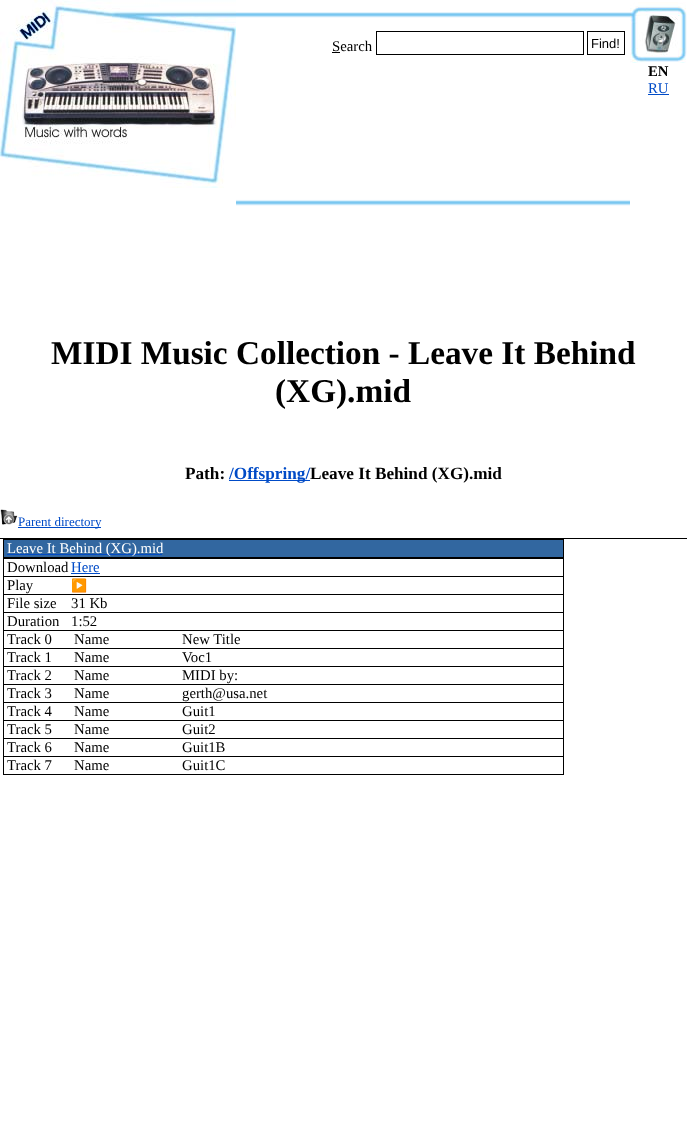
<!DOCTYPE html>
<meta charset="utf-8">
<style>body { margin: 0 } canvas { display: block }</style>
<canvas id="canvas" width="687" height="1129"></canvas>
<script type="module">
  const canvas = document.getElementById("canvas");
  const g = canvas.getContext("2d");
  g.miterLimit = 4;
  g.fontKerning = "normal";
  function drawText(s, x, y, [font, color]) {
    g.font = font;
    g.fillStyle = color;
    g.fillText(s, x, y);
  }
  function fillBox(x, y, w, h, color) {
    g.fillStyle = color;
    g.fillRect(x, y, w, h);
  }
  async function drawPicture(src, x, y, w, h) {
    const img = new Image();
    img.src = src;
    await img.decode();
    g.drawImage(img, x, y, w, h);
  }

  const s1 = ["14.75px Liberation Serif", "#000000"];
  const s2 = ["13px Liberation Sans", "#000000"];
  const s3 = ["bold 14.75px Liberation Serif", "#000000"];
  const s4 = ["14.75px Liberation Serif", "#004BC7"];
  const s5 = ["bold 33.3px Liberation Serif", "#000000"];
  const s6 = ["bold 17.2px Liberation Serif", "#000000"];
  const s7 = ["bold 17.2px Liberation Serif", "#004BC7"];
  const s8 = ["13px Liberation Serif", "#004BC7"];
  const s9 = ["14.75px Liberation Serif", "#FFFFFF"];
  const s10 = ["13px Noto Color Emoji", "#000000"];

  fillBox(0, 0, 687, 1129, "#FFFFFF");
  await drawPicture("pic1.png", 0, 0, 236, 188);
  await drawPicture("pic2.png", 236, 12, 394, 194);
  drawText("Search", 332, 51, s1);
  fillBox(332, 52, 8, 1, "#000000");
  g.strokeStyle = "#000000";
  g.strokeRect(376.5, 31.5, 207, 23);
  g.strokeRect(587.5, 31.5, 37, 23);
  drawText("Find!", 591, 48, s2);
  await drawPicture("pic3.png", 630, 2, 57, 61);
  drawText("EN", 648, 76, s3);
  drawText("RU", 648, 93, s4);
  fillBox(648, 94, 21, 1, "#004BC7");
  drawText("MIDI Music Collection - Leave It Behind", 51, 364, s5);
  drawText("(XG).mid", 275, 402, s5);
  drawText("Path:", 185, 479, s6);
  fillBox(229, 480, 81, 1, "#004BC7");
  drawText("/Offspring/", 229, 479, s7);
  drawText("Leave It Behind (XG).mid", 310, 479, s6);
  await drawPicture("pic4.png", 0, 509, 18, 16);
  fillBox(18, 527, 83, 1, "#004BC7");
  drawText("Parent directory", 18, 526, s8);
  fillBox(0, 538, 687, 1, "#000000");
  fillBox(3, 539, 561, 1, "#000000");
  fillBox(563, 539, 1, 236, "#000000");
  fillBox(3, 774, 561, 1, "#000000");
  fillBox(3, 539, 1, 236, "#000000");
  fillBox(4, 540, 559, 17, "#3267A0");
  fillBox(7, 554, 155, 1, "#004BC7");
  drawText("Leave It Behind (XG).mid", 7, 553, s9);
  fillBox(3, 557, 561, 1, "#000000");
  drawText("Download", 7, 572, s1);
  fillBox(3, 558, 561, 1, "#000000");
  drawText("Here", 71, 572, s4);
  fillBox(71, 573, 29, 1, "#004BC7");
  drawText("Play", 7, 590, s1);
  fillBox(3, 576, 561, 1, "#000000");
  drawText("▶️", 71, 590, s10);
  drawText("File size", 7, 608, s1);
  fillBox(3, 594, 561, 1, "#000000");
  drawText("31 Kb", 71, 608, s1);
  drawText("Duration", 7, 626, s1);
  fillBox(3, 612, 561, 1, "#000000");
  drawText("1:52", 71, 626, s1);
  drawText("Track 0", 7, 644, s1);
  fillBox(3, 630, 561, 1, "#000000");
  drawText("Name", 74, 644, s1);
  drawText("New Title", 182, 644, s1);
  drawText("Track 1", 7, 662, s1);
  fillBox(3, 648, 561, 1, "#000000");
  drawText("Name", 74, 662, s1);
  drawText("Voc1", 182, 662, s1);
  drawText("Track 2", 7, 680, s1);
  fillBox(3, 666, 561, 1, "#000000");
  drawText("Name", 74, 680, s1);
  drawText("MIDI by:", 182, 680, s1);
  drawText("Track 3", 7, 698, s1);
  fillBox(3, 684, 561, 1, "#000000");
  drawText("Name", 74, 698, s1);
  drawText("gerth@usa.net", 182, 698, s1);
  drawText("Track 4", 7, 716, s1);
  fillBox(3, 702, 561, 1, "#000000");
  drawText("Name", 74, 716, s1);
  drawText("Guit1", 182, 716, s1);
  drawText("Track 5", 7, 734, s1);
  fillBox(3, 720, 561, 1, "#000000");
  drawText("Name", 74, 734, s1);
  drawText("Guit2", 182, 734, s1);
  drawText("Track 6", 7, 752, s1);
  fillBox(3, 738, 561, 1, "#000000");
  drawText("Name", 74, 752, s1);
  drawText("Guit1B", 182, 752, s1);
  drawText("Track 7", 7, 770, s1);
  fillBox(3, 756, 561, 1, "#000000");
  drawText("Name", 74, 770, s1);
  drawText("Guit1C", 182, 770, s1);
</script>
